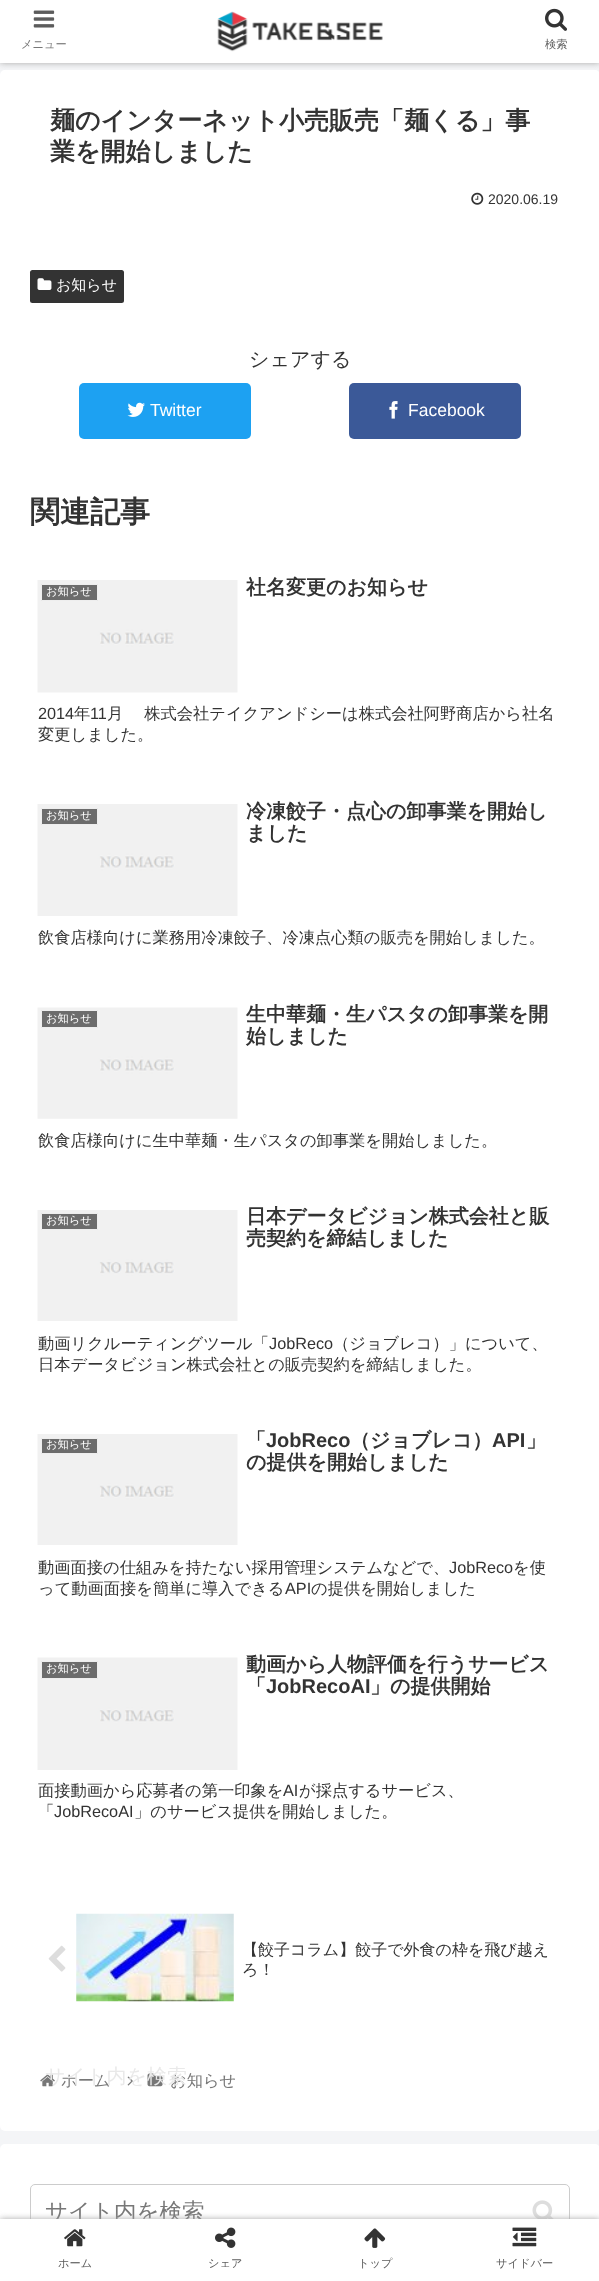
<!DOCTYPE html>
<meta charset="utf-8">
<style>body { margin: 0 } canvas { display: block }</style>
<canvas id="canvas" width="599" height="2281"></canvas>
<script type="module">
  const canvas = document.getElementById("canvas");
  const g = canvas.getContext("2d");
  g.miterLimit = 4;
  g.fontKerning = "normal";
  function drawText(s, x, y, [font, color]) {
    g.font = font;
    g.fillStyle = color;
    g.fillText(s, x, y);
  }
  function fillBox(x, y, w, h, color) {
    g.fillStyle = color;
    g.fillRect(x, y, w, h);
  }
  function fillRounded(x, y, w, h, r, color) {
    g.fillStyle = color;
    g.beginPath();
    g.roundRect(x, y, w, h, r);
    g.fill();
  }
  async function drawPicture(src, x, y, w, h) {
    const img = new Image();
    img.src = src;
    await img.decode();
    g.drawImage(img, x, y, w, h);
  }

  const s1 = ["500 11.25px WenQuanYi Zen Hei", "#777777"];
  const s2 = ["500 11.25px WenQuanYi Zen Hei", "#5C5C5C"];
  const s3 = ["500 16.25px WenQuanYi Zen Hei", "#777777"];
  const s4 = ["500 20px WenQuanYi Zen Hei", "#E9E9E9"];
  const s5 = ["bold 25px WenQuanYi Zen Hei", "#333333"];
  const s6 = ["14px Liberation Sans", "#333333"];
  const s7 = ["500 15px WenQuanYi Zen Hei", "#FFFFFF"];
  const s8 = ["500 20px WenQuanYi Zen Hei", "#333333"];
  const s9 = ["17.5px Liberation Sans", "#FFFFFF"];
  const s10 = ["bold 30px WenQuanYi Zen Hei", "#333333"];
  const s11 = ["bold 20px WenQuanYi Zen Hei", "#333333"];
  const s12 = ["16.25px Liberation Sans", "#333333"];
  const s13 = ["500 16.25px WenQuanYi Zen Hei", "#333333"];
  const s14 = ["500 11.25px WenQuanYi Zen Hei", "#FFFFFF"];
  const s15 = ["bold 20px Liberation Sans", "#333333"];
  const s16 = ["500 16px WenQuanYi Zen Hei", "#333333"];
  const s17 = ["500 22.5px WenQuanYi Zen Hei", "#777777"];

  fillBox(0, 0, 599, 2281, "#F4F5F7");
  fillRounded(0, 70, 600, 2061, 5, "#FFFFFF");
  g.fillStyle = "#A9A9A9";
  g.filter = "blur(3px)";
  g.beginPath();
  g.rect(0, 0, 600, 63);
  g.fill();
  g.filter = "none";
  fillBox(0, 0, 599, 63, "#FFFFFF");
  await drawPicture("pic1.png", 217, 11, 166, 41);
  await drawPicture("pic2.png", 33, 10, 22, 18);
  drawText("メニュー", 21, 48, s1);
  await drawPicture("pic3.png", 545, 8, 22, 23);
  drawText("検索", 545, 48, s2);
  await drawPicture("pic16.png", 40, 2074, 15, 13);
  drawText("ホーム", 61, 2086, s3);
  await drawPicture("pic17.png", 127, 2076, 6, 10);
  await drawPicture("pic18.png", 147, 2073, 16, 14);
  drawText("お知らせ", 170, 2086, s3);
  drawText("サイト内を検索", 45, 2083, s4);
  drawText("麺のインターネット小売販売「麺くる」事", 50, 129, s5);
  drawText("業を開始しました", 50, 160, s5);
  await drawPicture("pic4.png", 471, 192, 13, 13);
  drawText("2020.06.19", 488, 204, s6);
  fillRounded(30, 270, 94, 33, 2.5, "#333333");
  await drawPicture("pic5.png", 37, 278, 15, 12);
  drawText("お知らせ", 56, 290, s7);
  drawText("シェアする", 249, 366, s8);
  fillRounded(79, 383, 172, 56, 5, "#1DA1F2");
  await drawPicture("pic6.png", 127, 402, 18, 15);
  drawText("Twitter", 150, 416, s9);
  fillRounded(349, 383, 172, 56, 5, "#3B5998");
  await drawPicture("pic7.png", 389, 401, 9, 18);
  drawText("Facebook", 408, 416, s9);
  drawText("関連記事", 30, 522, s10);
  drawText("社名変更のお知らせ", 246, 594, s11);
  drawText("2014", 38, 719, s12);
  drawText("年", 74, 719, s13);
  drawText("11", 90, 719, s12);
  drawText("月　 株式会社テイクアンドシーは株式会社阿野商店から社名", 107, 719, s13);
  drawText("変更しました。", 38, 740, s13);
  await drawPicture("pic8.png", 37, 580, 201, 113);
  g.fillStyle = "#6C6C6C";
  g.beginPath();
  g.rect(41.5, 584.5, 56, 16);
  g.fill();
  g.strokeStyle = "#EEEEEE";
  g.stroke();
  drawText("お知らせ", 46, 595, s14);
  drawText("冷凍餃子・点心の卸事業を開始し", 246, 818, s11);
  drawText("ました", 246, 840, s11);
  drawText("飲食店様向けに業務用冷凍餃子、冷凍点心類の販売を開始しました。", 38, 943, s13);
  await drawPicture("pic9.png", 37, 804, 201, 112);
  g.fillStyle = "#6C6C6C";
  g.beginPath();
  g.rect(41.5, 808.5, 56, 16);
  g.fill();
  g.stroke();
  drawText("お知らせ", 46, 819, s14);
  drawText("生中華麺・生パスタの卸事業を開", 246, 1021, s11);
  drawText("始しました", 246, 1043, s11);
  drawText("飲食店様向けに生中華麺・生パスタの卸事業を開始しました。", 38, 1146, s13);
  await drawPicture("pic10.png", 37, 1007, 201, 112);
  g.fillStyle = "#6C6C6C";
  g.beginPath();
  g.rect(41.5, 1010.5, 56, 17);
  g.fill();
  g.stroke();
  drawText("お知らせ", 46, 1022, s14);
  drawText("日本データビジョン株式会社と販", 246, 1223, s11);
  drawText("売契約を締結しました", 246, 1245, s11);
  drawText("動画リクルーティングツール「", 38, 1349, s13);
  drawText("JobReco", 269, 1349, s12);
  drawText("（ジョブレコ）」について、", 333, 1349, s13);
  drawText("日本データビジョン株式会社との販売契約を締結しました。", 38, 1370, s13);
  await drawPicture("pic11.png", 37, 1210, 201, 111);
  g.fillStyle = "#6C6C6C";
  g.beginPath();
  g.rect(41.5, 1213.5, 56, 16);
  g.fill();
  g.stroke();
  drawText("お知らせ", 46, 1224, s14);
  drawText("「", 246, 1447, s11);
  drawText("JobReco", 266, 1447, s15);
  drawText("（ジョブレコ）", 350, 1447, s11);
  drawText("API", 492, 1447, s15);
  drawText("」", 526, 1447, s11);
  drawText("の提供を開始しました", 246, 1469, s11);
  drawText("動画面接の仕組みを持たない採用管理システムなどで、", 38, 1573, s13);
  drawText("JobReco", 449, 1573, s12);
  drawText("を使", 513, 1573, s13);
  drawText("って動画面接を簡単に導入できる", 38, 1594, s13);
  drawText("API", 285, 1594, s12);
  drawText("の提供を開始しました", 311, 1594, s13);
  await drawPicture("pic12.png", 37, 1434, 201, 111);
  g.fillStyle = "#6C6C6C";
  g.beginPath();
  g.rect(41.5, 1438.5, 56, 15);
  g.fill();
  g.stroke();
  drawText("お知らせ", 46, 1448, s14);
  drawText("動画から人物評価を行うサービス", 246, 1671, s11);
  drawText("「", 246, 1693, s11);
  drawText("JobRecoAI", 266, 1693, s15);
  drawText("」の提供開始", 370, 1693, s11);
  drawText("面接動画から応募者の第一印象を", 38, 1796, s13);
  drawText("AI", 283, 1796, s12);
  drawText("が採点するサービス、", 299, 1796, s13);
  drawText("「", 38, 1817, s13);
  drawText("JobRecoAI", 54, 1817, s12);
  drawText("」のサービス提供を開始しました。", 134, 1817, s13);
  await drawPicture("pic13.png", 37, 1657, 201, 113);
  g.fillStyle = "#6C6C6C";
  g.beginPath();
  g.rect(41.5, 1661.5, 56, 17);
  g.fill();
  g.stroke();
  drawText("お知らせ", 46, 1672, s14);
  await drawPicture("pic14.png", 48, 1945, 18, 27);
  await drawPicture("pic15.png", 76, 1913, 158, 89);
  drawText("【餃子コラム】餃子で外食の枠を飛び越え", 242, 1955, s16);
  drawText("ろ！", 242, 1975, s16);
  fillRounded(0, 2144, 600, 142, 5, "#FFFFFF");
  g.beginPath();
  g.roundRect(30.5, 2184.5, 539, 55, 4.5);
  g.strokeStyle = "#CCCCCC";
  g.stroke();
  drawText("サイト内を検索", 45, 2219, s17);
  await drawPicture("pic19.png", 532, 2200, 22, 19);
  g.fillStyle = "#A9A9A9";
  g.filter = "blur(3px)";
  g.beginPath();
  g.rect(0, 2219, 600, 62);
  g.fill();
  g.filter = "none";
  fillBox(0, 2219, 599, 62, "#FFFFFF");
  await drawPicture("pic20.png", 64, 2229, 22, 18);
  drawText("ホーム", 58, 2267, s2);
  await drawPicture("pic21.png", 215, 2227, 21, 21);
  drawText("シェア", 208, 2267, s2);
  await drawPicture("pic22.png", 364, 2228, 22, 20);
  drawText("トップ", 358, 2267, s2);
  await drawPicture("pic23.png", 512, 2227, 25, 20);
  drawText("サイドバー", 496, 2267, s2);
</script>
